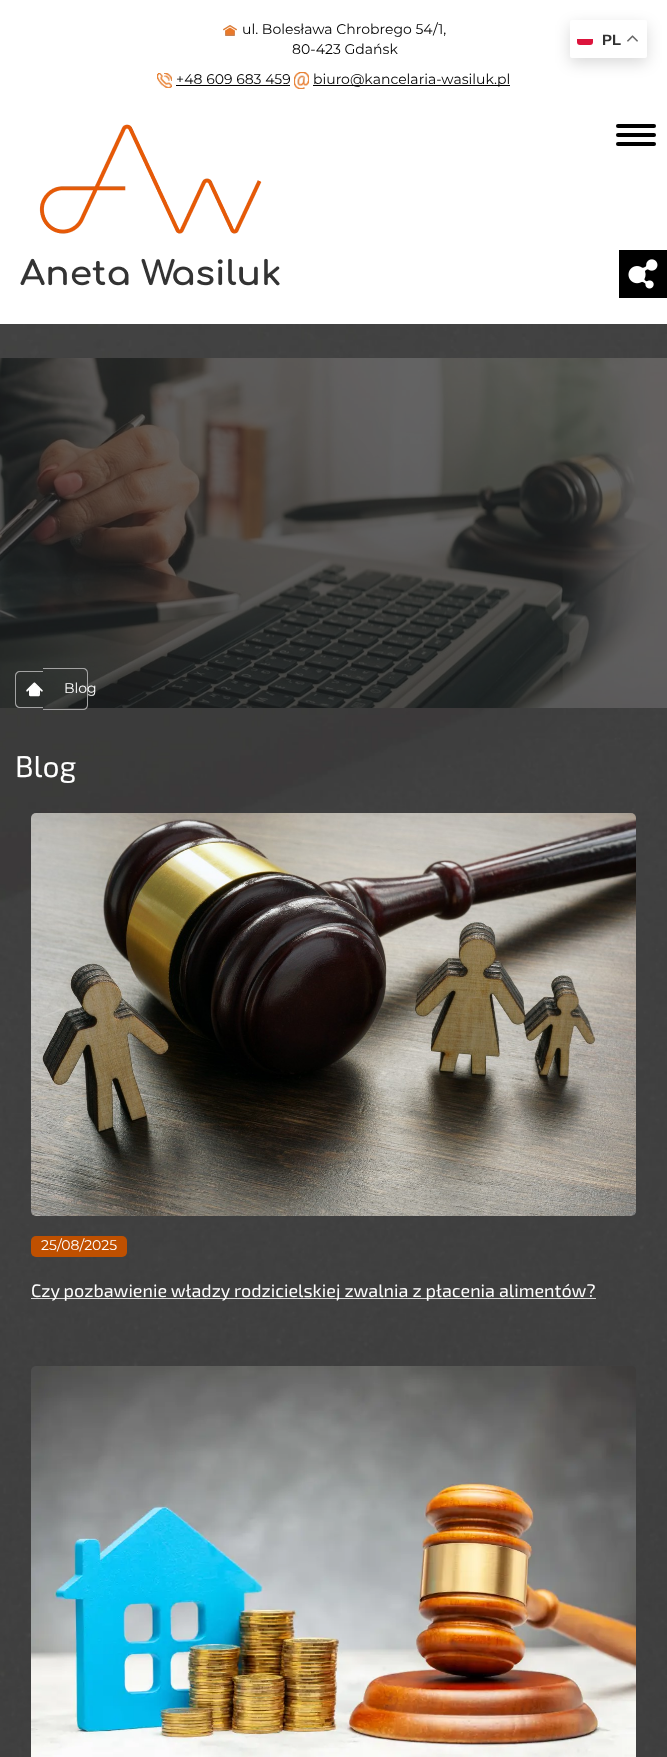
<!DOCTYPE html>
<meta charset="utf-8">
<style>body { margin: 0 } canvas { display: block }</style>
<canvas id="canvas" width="667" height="1757"></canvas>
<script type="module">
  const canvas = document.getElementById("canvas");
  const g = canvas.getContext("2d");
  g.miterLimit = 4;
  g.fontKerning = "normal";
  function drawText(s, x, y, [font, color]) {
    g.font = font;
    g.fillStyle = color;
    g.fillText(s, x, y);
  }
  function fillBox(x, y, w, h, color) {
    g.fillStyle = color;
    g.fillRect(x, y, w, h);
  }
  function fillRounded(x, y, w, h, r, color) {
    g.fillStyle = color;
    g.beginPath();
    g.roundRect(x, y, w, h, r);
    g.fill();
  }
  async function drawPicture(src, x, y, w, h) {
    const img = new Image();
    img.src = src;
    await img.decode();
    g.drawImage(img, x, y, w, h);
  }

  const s1 = ["14px Montserrat", "#000000"];
  const s2 = ["bold 15px Liberation Sans", "#333333"];
  const s3 = ["14px Montserrat", "#FFFFFF"];
  const s4 = ["30px 'Exo 2'", "#FFFFFF"];
  const s5 = ["18px 'Exo 2'", "#FFFFFF"];

  fillBox(0, 0, 667, 1757, "#FFFFFF");
  await drawPicture("pic1.png", 223, 25, 14, 11);
  drawText("ul. Bolesława Chrobrego 54/1,", 242, 34, s1);
  drawText("80-423 Gdańsk", 292, 54, s1);
  await drawPicture("pic2.png", 157, 73, 15, 15);
  drawText("+48 609 683 459", 176, 84, s1);
  fillBox(176, 85, 114, 1, "#000000");
  await drawPicture("pic3.png", 294, 72, 15, 17);
  fillBox(313, 85, 197, 1, "#000000");
  drawText("biuro@kancelaria-wasiluk.pl", 313, 84, s1);
  await drawPicture("pic4.png", 20, 124, 260, 162);
  fillRounded(616, 124, 40, 4, 2, "#000000");
  fillRounded(616, 133, 40, 4, 2, "#000000");
  fillRounded(616, 142, 40, 4, 2, "#000000");
  g.fillStyle = "rgba(0, 0, 0, 0.15)";
  g.filter = "blur(7.5px)";
  g.beginPath();
  g.roundRect(570, 25, 77, 38, 2);
  g.fill();
  g.filter = "none";
  fillRounded(570, 20, 77, 38, 2, "#FFFFFF");
  g.fillStyle = "#DC143C";
  g.beginPath();
  g.roundRect(577, 39, 16, 6, [0, 0, 3, 3]);
  g.fill();
  drawText("PL", 602, 45, s2);
  await drawPicture("pic5.png", 627, 35, 11, 7);
  fillBox(619, 250, 48, 48, "#000000");
  await drawPicture("pic6.png", 628, 259, 30, 30);
  await drawPicture("pic11.png", 0, 324, 667, 1433);
  await drawPicture("pic7.png", 0, 358, 667, 350);
  g.fillStyle = "#A3A3A3";
  g.beginPath();
  g.moveTo(20, 671);
  g.lineTo(43, 671);
  g.lineTo(43, 708);
  g.lineTo(20, 708);
  g.bezierCurveTo(17, 708, 15, 706, 15, 703);
  g.lineTo(15, 676);
  g.bezierCurveTo(15, 673, 17, 671, 20, 671);
  g.closePath();
  g.moveTo(20, 672);
  g.lineTo(43, 672);
  g.lineTo(43, 707);
  g.lineTo(20, 707);
  g.bezierCurveTo(18, 707, 16, 705, 16, 703);
  g.lineTo(16, 676);
  g.bezierCurveTo(16, 674, 18, 672, 20, 672);
  g.closePath();
  g.fill("evenodd");
  g.beginPath();
  g.moveTo(43, 668);
  g.lineTo(83, 668);
  g.bezierCurveTo(86, 668, 88, 670, 88, 673);
  g.lineTo(88, 705);
  g.bezierCurveTo(88, 708, 86, 710, 83, 710);
  g.lineTo(43, 710);
  g.closePath();
  g.moveTo(43, 669);
  g.lineTo(83, 669);
  g.bezierCurveTo(85, 669, 87, 671, 87, 673);
  g.lineTo(87, 705);
  g.bezierCurveTo(87, 707, 85, 709, 83, 709);
  g.lineTo(43, 709);
  g.closePath();
  g.fill("evenodd");
  await drawPicture("pic8.png", 26, 682, 17, 15);
  drawText("Blog", 64, 693, s3);
  drawText("Blog", 15, 777, s4);
  await drawPicture("pic9.png", 31, 813, 605, 403);
  fillRounded(31, 1236, 96, 21, 5, "#BF5000");
  drawText("25/08/2025", 41, 1250, s3);
  fillBox(31, 1298, 565, 1, "#D6D6D6");
  drawText("Czy pozbawienie władzy rodzicielskiej zwalnia z płacenia alimentów?", 31, 1297, s5);
  await drawPicture("pic10.png", 31, 1366, 605, 391);
</script>
